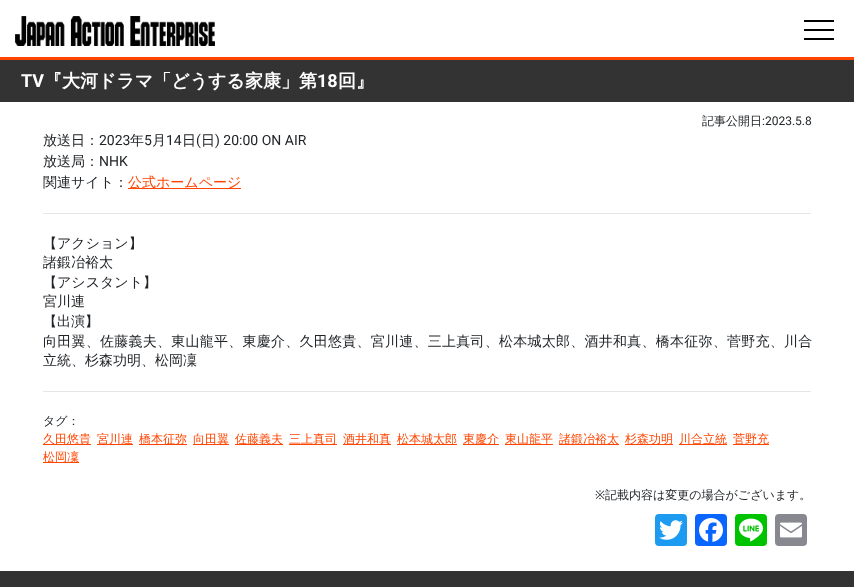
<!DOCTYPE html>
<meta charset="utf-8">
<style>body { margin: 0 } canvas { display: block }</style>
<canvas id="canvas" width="854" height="587"></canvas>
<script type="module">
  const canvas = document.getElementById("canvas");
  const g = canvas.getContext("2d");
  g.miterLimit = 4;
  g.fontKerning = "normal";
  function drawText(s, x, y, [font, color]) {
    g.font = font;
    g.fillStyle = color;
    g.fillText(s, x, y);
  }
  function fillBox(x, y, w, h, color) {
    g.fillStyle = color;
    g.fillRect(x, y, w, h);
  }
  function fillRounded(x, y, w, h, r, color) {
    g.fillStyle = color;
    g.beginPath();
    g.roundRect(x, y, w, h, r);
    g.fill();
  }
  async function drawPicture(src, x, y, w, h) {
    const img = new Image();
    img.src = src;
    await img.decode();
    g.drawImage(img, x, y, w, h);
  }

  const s1 = ["bold 18px Roboto", "#FFFFFF"];
  const s2 = ["bold 18px WenQuanYi Zen Hei", "#FFFFFF"];
  const s3 = ["500 12px WenQuanYi Zen Hei", "#212529"];
  const s4 = ["12px Roboto", "#212529"];
  const s5 = ["500 14px WenQuanYi Zen Hei", "#212529"];
  const s6 = ["14px Roboto", "#212529"];
  const s7 = ["500 14px WenQuanYi Zen Hei", "#FF4500"];
  const s8 = ["500 12px WenQuanYi Zen Hei", "#FF4500"];
  const s9 = ["12px Noto Sans", "#212529"];

  fillBox(0, 0, 854, 587, "#FFFFFF");
  fillBox(0, 57, 854, 3, "#FF4500");
  await drawPicture("pic1.png", 15, 16, 200, 30);
  fillBox(804, 20, 30, 2, "#000000");
  fillBox(804, 29, 30, 2, "#000000");
  fillBox(804, 38, 30, 2, "#000000");
  fillBox(0, 60, 854, 42, "#333333");
  drawText("TV", 21, 87, s1);
  drawText("『大河ドラマ「どうする家康」第", 44, 87, s2);
  drawText("18", 317, 87, s1);
  drawText("回』", 338, 87, s2);
  drawText("記事公開日", 702, 125, s3);
  drawText(":2023.5.8", 762, 125, s4);
  drawText("放送日：", 43, 145, s5);
  drawText("2023", 99, 145, s6);
  drawText("年", 130, 145, s5);
  drawText("5", 144, 145, s6);
  drawText("月", 152, 145, s5);
  drawText("14", 166, 145, s6);
  drawText("日", 182, 145, s5);
  drawText("(", 196, 145, s6);
  drawText("日", 201, 145, s5);
  drawText(") 20:00 ON AIR", 215, 145, s6);
  drawText("放送局：", 43, 166, s5);
  drawText("NHK", 99, 166, s6);
  drawText("関連サイト：", 43, 187, s5);
  fillBox(128, 188, 113, 1, "#FF4500");
  drawText("公式ホームページ", 128, 187, s7);
  fillBox(43, 213, 768, 1, "#E6E6E6");
  drawText("【アクション】", 43, 248, s5);
  drawText("諸鍛冶裕太", 43, 267, s5);
  drawText("【アシスタント】", 43, 287, s5);
  drawText("宮川連", 43, 306, s5);
  drawText("【出演】", 43, 326, s5);
  g.letterSpacing = "0.25px";
  drawText("向田翼、佐藤義夫、東山龍平、東慶介、久田悠貴、宮川連、三上真司、松本城太郎、酒井和真、橋本征弥、菅野充、川合", 43, 346, s5);
  g.letterSpacing = "0px";
  drawText("立統、杉森功明、松岡凜", 43, 365, s5);
  fillBox(43, 391, 768, 1, "#E6E6E6");
  drawText("タグ：", 43, 425, s3);
  fillBox(43, 444, 48, 1, "#FF4500");
  drawText("久田悠貴", 43, 443, s8);
  fillBox(97, 444, 36, 1, "#FF4500");
  drawText("宮川連", 97, 443, s8);
  fillBox(139, 444, 48, 1, "#FF4500");
  drawText("橋本征弥", 139, 443, s8);
  fillBox(193, 444, 36, 1, "#FF4500");
  drawText("向田翼", 193, 443, s8);
  fillBox(235, 444, 48, 1, "#FF4500");
  drawText("佐藤義夫", 235, 443, s8);
  fillBox(289, 444, 48, 1, "#FF4500");
  drawText("三上真司", 289, 443, s8);
  fillBox(343, 444, 48, 1, "#FF4500");
  drawText("酒井和真", 343, 443, s8);
  fillBox(397, 444, 60, 1, "#FF4500");
  drawText("松本城太郎", 397, 443, s8);
  fillBox(463, 444, 36, 1, "#FF4500");
  drawText("東慶介", 463, 443, s8);
  fillBox(505, 444, 48, 1, "#FF4500");
  drawText("東山龍平", 505, 443, s8);
  fillBox(559, 444, 60, 1, "#FF4500");
  drawText("諸鍛冶裕太", 559, 443, s8);
  fillBox(625, 444, 48, 1, "#FF4500");
  drawText("杉森功明", 625, 443, s8);
  fillBox(679, 444, 48, 1, "#FF4500");
  drawText("川合立統", 679, 443, s8);
  fillBox(733, 444, 36, 1, "#FF4500");
  drawText("菅野充", 733, 443, s8);
  fillBox(43, 462, 36, 1, "#FF4500");
  drawText("松岡凜", 43, 461, s8);
  drawText("※", 595, 499, s9);
  drawText("記載内容は変更の場合がございます。", 605, 499, s3);
  fillRounded(655, 514, 32, 32, 4, "#1D9BF0");
  await drawPicture("pic2.png", 659, 520, 24, 20);
  fillRounded(695, 514, 32, 32, 4, "#0866FF");
  await drawPicture("pic3.png", 699, 518, 24, 24);
  fillRounded(735, 514, 32, 32, 4, "#00C300");
  await drawPicture("pic4.png", 739, 518, 24, 24);
  fillRounded(775, 514, 32, 32, 4, "#888990");
  await drawPicture("pic5.png", 780, 522, 22, 16);
  fillBox(0, 571, 854, 16, "#333333");
</script>
